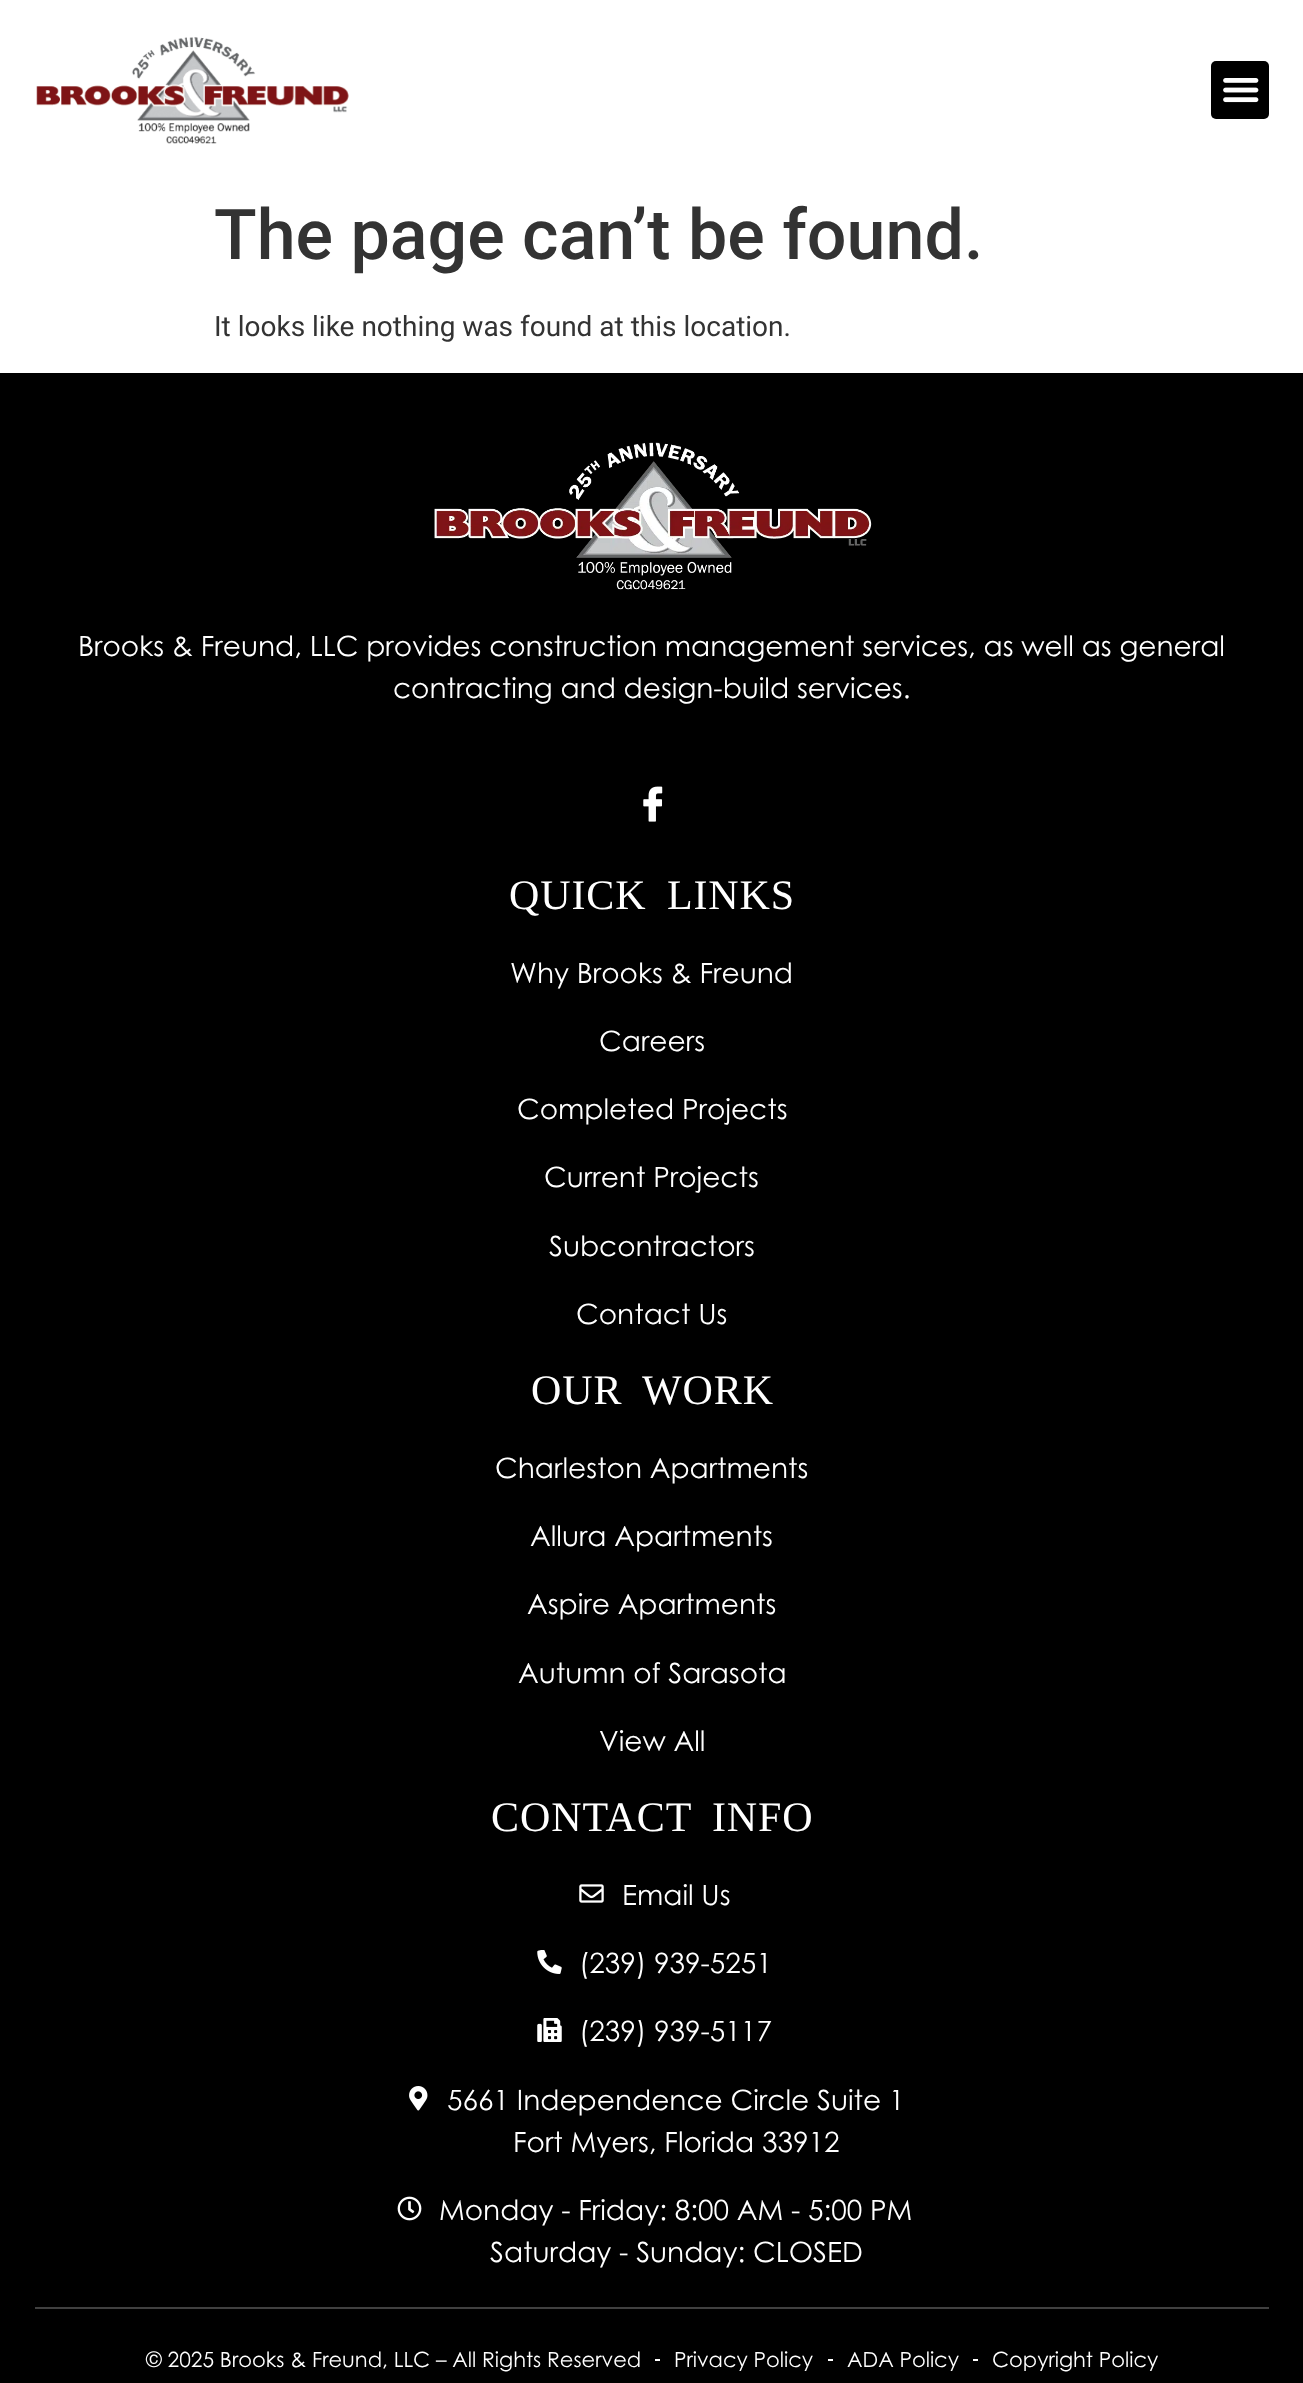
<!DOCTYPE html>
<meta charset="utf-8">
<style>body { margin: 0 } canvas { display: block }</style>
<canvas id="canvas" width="1303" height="2383"></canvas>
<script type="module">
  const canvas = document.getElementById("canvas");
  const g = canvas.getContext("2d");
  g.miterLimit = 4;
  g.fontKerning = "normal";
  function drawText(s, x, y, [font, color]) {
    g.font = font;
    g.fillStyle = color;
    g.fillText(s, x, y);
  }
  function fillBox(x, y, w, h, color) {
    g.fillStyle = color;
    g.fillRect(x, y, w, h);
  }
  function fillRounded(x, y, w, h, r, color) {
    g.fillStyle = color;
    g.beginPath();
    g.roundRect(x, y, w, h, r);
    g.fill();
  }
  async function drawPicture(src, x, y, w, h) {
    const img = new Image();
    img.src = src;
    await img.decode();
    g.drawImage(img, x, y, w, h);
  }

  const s1 = ["500 70px Roboto", "#333333"];
  const s2 = ["28px Roboto", "#333333"];
  const s3 = ["28px Century Gothic", "#FFFFFF"];
  const s4 = ["42px Liberation Serif", "#FFFFFF"];
  const s5 = ["21px Century Gothic", "#FFFFFF"];

  fillBox(0, 0, 1303, 2383, "#FFFFFF");
  await drawPicture("pic1.png", 36, 37, 313, 107);
  fillRounded(1211, 61, 58, 58, 5, "#000000");
  await drawPicture("pic2.png", 1223, 78, 36, 25);
  drawText("The page can’t be found.", 214, 259, s1);
  drawText("It looks like nothing was found at this location.", 214, 336, s2);
  fillBox(0, 373, 1303, 2010, "#000000");
  await drawPicture("pic3.png", 434, 442, 438, 148);
  drawText("Brooks & Freund, LLC provides construction management services, as well as general", 78, 656, s3);
  drawText("contracting and design-build services.", 393, 698, s3);
  await drawPicture("pic4.png", 643, 786, 20, 36);
  g.letterSpacing = "0.9px";
  g.wordSpacing = "9px";
  drawText("QUICK LINKS", 509, 909, s4);
  g.letterSpacing = "0px";
  g.wordSpacing = "0px";
  drawText("Why Brooks & Freund", 510, 983, s3);
  drawText("Careers", 599, 1051, s3);
  drawText("Completed Projects", 517, 1119, s3);
  drawText("Current Projects", 544, 1187, s3);
  drawText("Subcontractors", 549, 1256, s3);
  drawText("Contact Us", 576, 1324, s3);
  g.letterSpacing = "0.9px";
  g.wordSpacing = "9px";
  drawText("OUR WORK", 531, 1404, s4);
  g.letterSpacing = "0px";
  g.wordSpacing = "0px";
  drawText("Charleston Apartments", 495, 1478, s3);
  drawText("Allura Apartments", 530, 1546, s3);
  drawText("Aspire Apartments", 527, 1614, s3);
  drawText("Autumn of Sarasota", 518, 1683, s3);
  drawText("View All", 599, 1751, s3);
  g.letterSpacing = "0.9px";
  g.wordSpacing = "9px";
  drawText("CONTACT INFO", 491, 1831, s4);
  await drawPicture("pic5.png", 579, 1884, 25, 19);
  g.letterSpacing = "0px";
  g.wordSpacing = "0px";
  drawText("Email Us", 622, 1905, s3);
  await drawPicture("pic6.png", 537, 1950, 25, 24);
  drawText("(239) 939-5251", 579, 1973, s3);
  await drawPicture("pic7.png", 537, 2018, 25, 24);
  drawText("(239) 939-5117", 579, 2041, s3);
  await drawPicture("pic8.png", 409, 2086, 19, 25);
  drawText("5661 Independence Circle Suite 1", 447, 2110, s3);
  drawText("Fort Myers, Florida 33912", 513, 2152, s3);
  await drawPicture("pic9.png", 397, 2196, 25, 25);
  drawText("Monday - Friday: 8:00 AM - 5:00 PM", 439, 2220, s3);
  drawText("Saturday - Sunday: CLOSED", 490, 2262, s3);
  fillBox(35, 2307, 1234, 2, "#404040");
  drawText("© 2025 Brooks & Freund, LLC – All Rights Reserved", 146, 2367, s5);
  fillBox(655, 2359, 5, 2, "#FFFFFF");
  drawText("Privacy Policy", 674, 2367, s5);
  fillBox(828, 2359, 5, 2, "#FFFFFF");
  drawText("ADA Policy", 847, 2367, s5);
  fillBox(973, 2359, 5, 2, "#FFFFFF");
  drawText("Copyright Policy", 992, 2367, s5);
</script>
